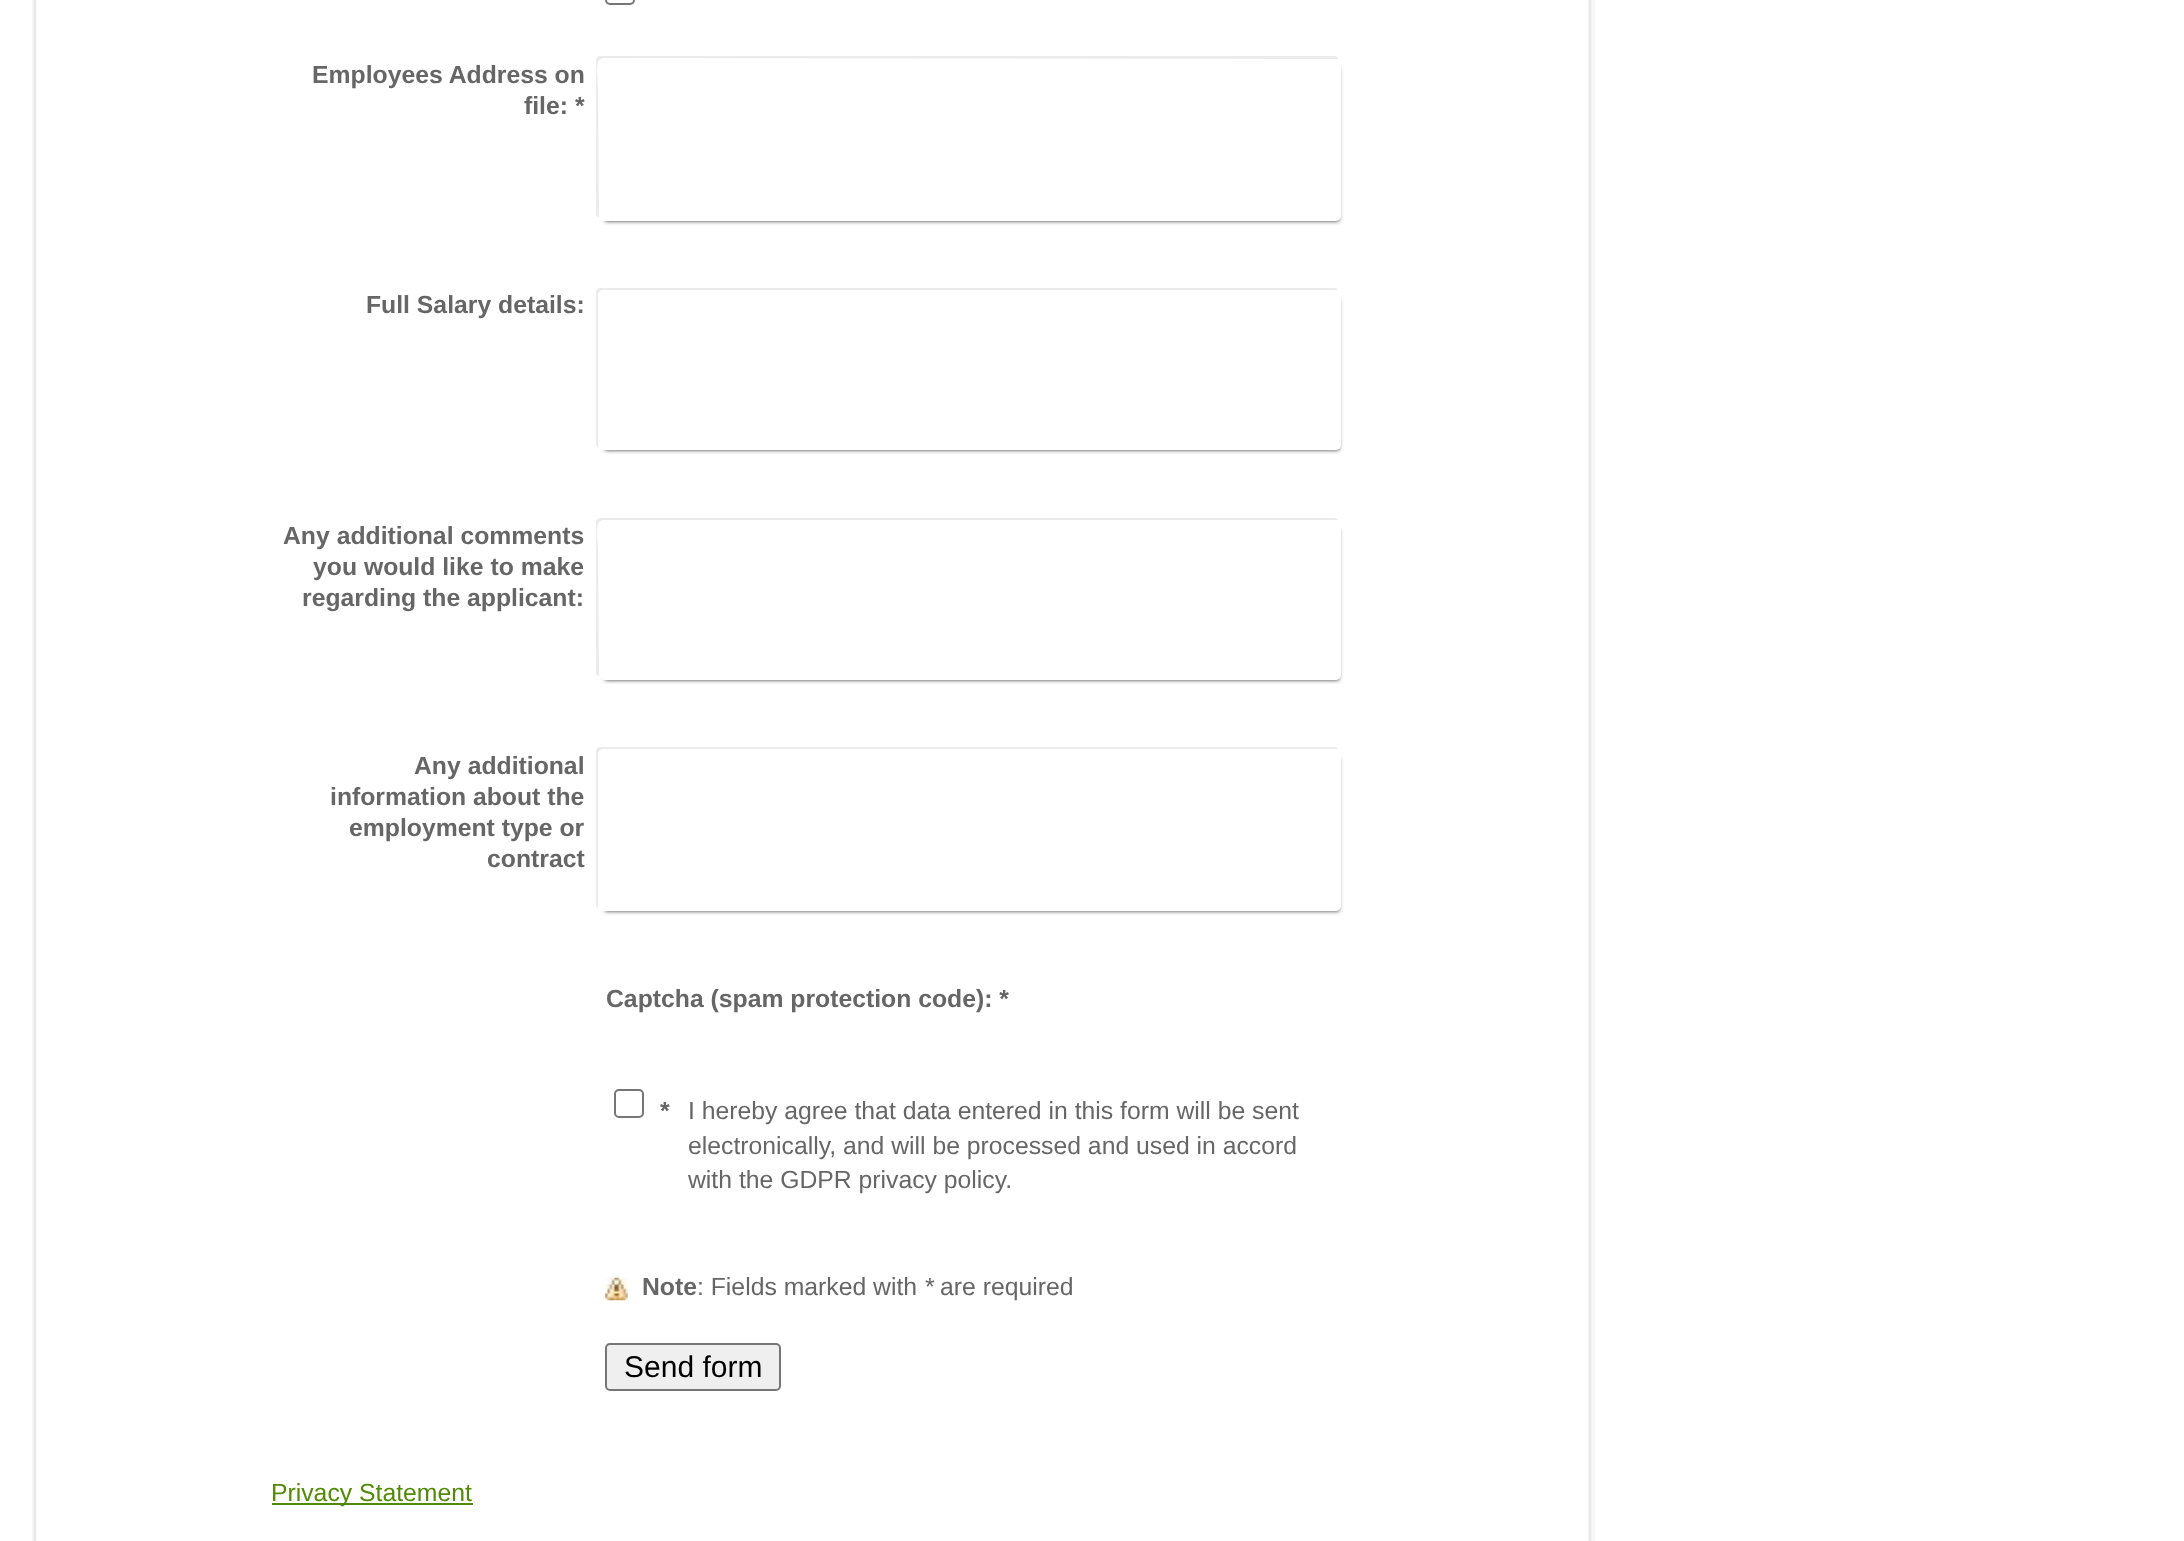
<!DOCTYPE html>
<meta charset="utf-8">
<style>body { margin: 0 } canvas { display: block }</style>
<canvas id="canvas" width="2184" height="1541"></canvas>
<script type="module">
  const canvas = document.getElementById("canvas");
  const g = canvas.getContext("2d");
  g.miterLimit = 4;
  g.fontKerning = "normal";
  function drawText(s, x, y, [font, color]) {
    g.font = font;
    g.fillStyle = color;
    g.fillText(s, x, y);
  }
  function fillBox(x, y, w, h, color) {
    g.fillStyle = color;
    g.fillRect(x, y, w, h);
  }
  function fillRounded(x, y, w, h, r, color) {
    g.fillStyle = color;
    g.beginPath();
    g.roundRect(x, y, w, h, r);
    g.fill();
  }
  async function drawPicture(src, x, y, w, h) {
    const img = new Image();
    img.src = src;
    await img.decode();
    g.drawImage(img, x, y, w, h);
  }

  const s1 = ["bold 24.75px Liberation Sans", "#666666"];
  const s2 = ["24.75px Liberation Sans", "#666666"];
  const s3 = ["italic 24.75px Liberation Sans", "#666666"];
  const s4 = ["30px Liberation Sans", "#000000"];
  const s5 = ["24.75px Liberation Sans", "#518A05"];

  fillBox(0, 0, 2184, 1541, "#FFFFFF");
  await drawPicture("pic1.png", 32, 0, 1563, 1541);
  g.beginPath();
  g.roundRect(606, -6, 28, 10, 4);
  g.strokeStyle = "#767676";
  g.lineWidth = 2;
  g.stroke();
  g.fillStyle = "#EBEBEB";
  g.beginPath();
  g.moveTo(601, 56);
  g.bezierCurveTo(598, 56, 596, 58, 596, 61);
  g.lineTo(596, 213);
  g.bezierCurveTo(596, 215, 597, 217, 599, 217);
  g.lineTo(598, 88);
  g.bezierCurveTo(598, 79, 594, 59, 603, 58);
  g.lineTo(1338, 59);
  g.lineTo(1339, 59);
  g.bezierCurveTo(1338, 57, 1336, 56, 1334, 56);
  g.closePath();
  g.fill();
  g.fillStyle = "rgba(0, 0, 0, 0.8)";
  g.filter = "blur(2px)";
  g.beginPath();
  g.rect(605, 68, 734, 153);
  g.fill();
  g.filter = "none";
  fillRounded(599, 59, 742, 162, 5, "#FFFFFF");
  drawText("Employees Address on", 312, 83, s1);
  drawText("file: *", 524, 114, s1);
  g.fillStyle = "#EBEBEB";
  g.beginPath();
  g.moveTo(601, 288);
  g.bezierCurveTo(598, 288, 596, 290, 596, 293);
  g.lineTo(596, 443);
  g.bezierCurveTo(596, 445, 597, 447, 599, 448);
  g.lineTo(598, 446);
  g.lineTo(598, 295);
  g.bezierCurveTo(598, 292, 601, 290, 603, 290);
  g.lineTo(1336, 290);
  g.lineTo(1338, 291);
  g.bezierCurveTo(1338, 289, 1336, 288, 1334, 288);
  g.closePath();
  g.fill();
  g.fillStyle = "rgba(0, 0, 0, 0.8)";
  g.filter = "blur(2px)";
  g.beginPath();
  g.rect(605, 299, 734, 151);
  g.fill();
  g.filter = "none";
  fillRounded(599, 290, 742, 160, 5, "#FFFFFF");
  drawText("Full Salary details:", 366, 313, s1);
  g.fillStyle = "#EBEBEB";
  g.beginPath();
  g.moveTo(601, 518);
  g.bezierCurveTo(598, 518, 596, 520, 596, 523);
  g.lineTo(596, 672);
  g.bezierCurveTo(596, 674, 597, 676, 599, 676);
  g.lineTo(598, 549);
  g.bezierCurveTo(598, 540, 594, 520, 603, 520);
  g.lineTo(1338, 520);
  g.bezierCurveTo(1337, 519, 1336, 518, 1334, 518);
  g.closePath();
  g.fill();
  g.fillStyle = "rgba(0, 0, 0, 0.8)";
  g.filter = "blur(2px)";
  g.beginPath();
  g.rect(605, 529, 734, 151);
  g.fill();
  g.filter = "none";
  fillRounded(599, 520, 742, 160, 5, "#FFFFFF");
  drawText("Any additional comments", 283, 544, s1);
  drawText("you would like to make", 313, 575, s1);
  drawText("regarding the applicant:", 302, 606, s1);
  g.fillStyle = "#EBEBEB";
  g.beginPath();
  g.moveTo(601, 747);
  g.bezierCurveTo(598, 747, 596, 749, 596, 752);
  g.lineTo(596, 904);
  g.bezierCurveTo(596, 906, 597, 908, 599, 909);
  g.lineTo(598, 907);
  g.lineTo(598, 754);
  g.bezierCurveTo(598, 751, 601, 749, 603, 749);
  g.lineTo(1336, 749);
  g.lineTo(1338, 750);
  g.bezierCurveTo(1338, 748, 1336, 747, 1334, 747);
  g.closePath();
  g.fill();
  g.fillStyle = "rgba(0, 0, 0, 0.8)";
  g.filter = "blur(2px)";
  g.beginPath();
  g.rect(605, 758, 734, 153);
  g.fill();
  g.filter = "none";
  fillRounded(599, 749, 742, 162, 5, "#FFFFFF");
  drawText("Any additional", 414, 774, s1);
  drawText("information about the", 330, 805, s1);
  drawText("employment type or", 349, 836, s1);
  drawText("contract", 487, 867, s1);
  drawText("Captcha (spam protection code): *", 606, 1007, s1);
  g.beginPath();
  g.roundRect(615, 1090, 28, 27, 4);
  g.stroke();
  drawText("*", 660, 1119, s1);
  drawText("I hereby agree that data entered in this form will be sent", 688, 1119, s2);
  drawText("electronically, and will be processed and used in accord", 688, 1154, s2);
  drawText("with the GDPR privacy policy.", 688, 1188, s2);
  await drawPicture("pic2.png", 605, 1277, 23, 24);
  drawText("Note", 642, 1295, s1);
  drawText(": Fields marked with", 697, 1295, s2);
  drawText("*", 924, 1295, s3);
  drawText("are required", 940, 1295, s2);
  g.fillStyle = "#EFEFEF";
  g.beginPath();
  g.roundRect(606, 1344, 174, 46, 4);
  g.fill();
  g.stroke();
  drawText("Send form", 624, 1377, s4);
  fillBox(272, 1503, 201, 2, "#518A05");
  drawText("Privacy Statement", 271, 1501, s5);
</script>
